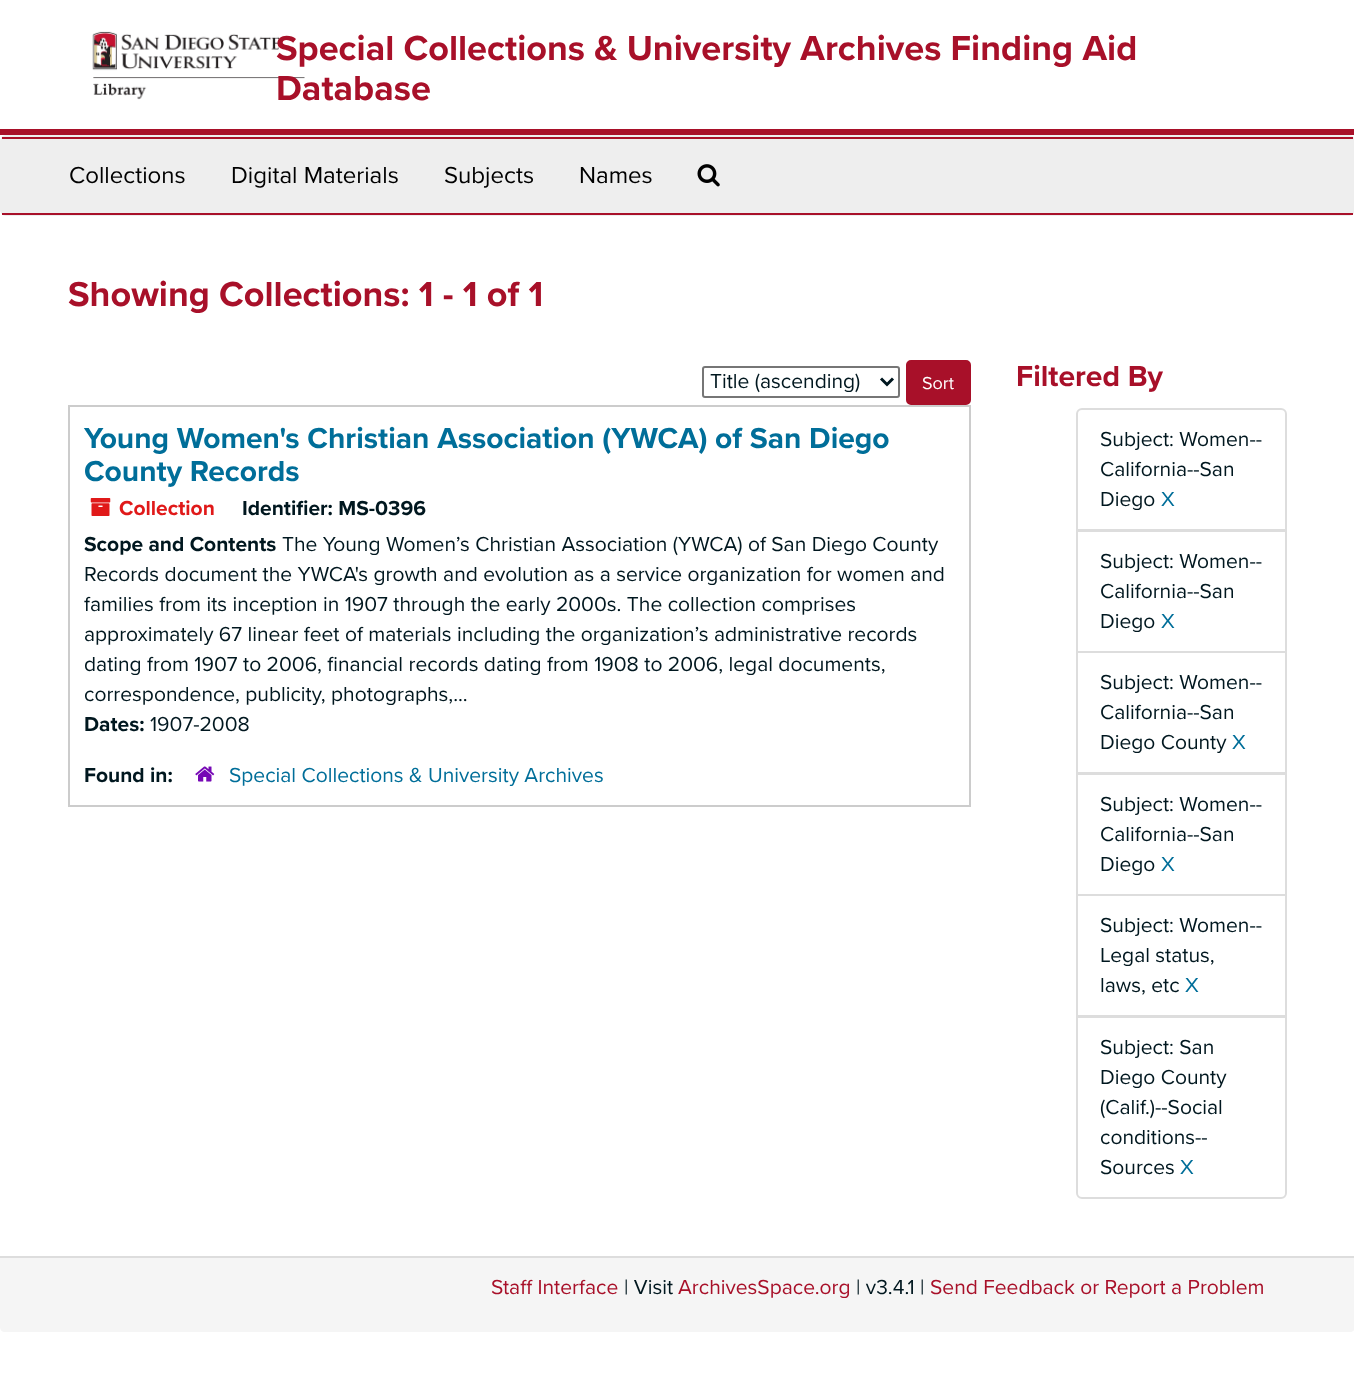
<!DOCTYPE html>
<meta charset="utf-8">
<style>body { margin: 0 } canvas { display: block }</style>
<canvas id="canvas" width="1354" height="1398"></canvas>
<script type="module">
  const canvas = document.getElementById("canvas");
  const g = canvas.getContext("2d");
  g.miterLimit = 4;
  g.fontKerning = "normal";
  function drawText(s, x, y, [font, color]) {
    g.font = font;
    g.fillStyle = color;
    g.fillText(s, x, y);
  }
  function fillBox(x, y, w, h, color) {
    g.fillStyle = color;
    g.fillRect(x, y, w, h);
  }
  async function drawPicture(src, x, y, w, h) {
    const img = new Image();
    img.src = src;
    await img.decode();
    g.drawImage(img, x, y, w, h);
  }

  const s1 = ["bold 36px Proxima Nova", "#A81029"];
  const s2 = ["24px Proxima Nova", "#000000"];
  const s3 = ["21px Proxima Nova", "#00171F"];
  const s4 = ["18px Proxima Nova", "#FFFFFF"];
  const s5 = ["bold 30px Proxima Nova", "#006E99"];
  const s6 = ["bold 21px Proxima Nova", "#E01919"];
  const s7 = ["bold 21px Proxima Nova", "#00171F"];
  const s8 = ["21px Proxima Nova", "#006E99"];
  const s9 = ["bold 30px Proxima Nova", "#A81029"];
  const s10 = ["21px Proxima Nova", "#A81029"];

  fillBox(0, 0, 1354, 1398, "#FFFFFF");
  fillBox(0, 129, 1354, 6, "#A81029");
  await drawPicture("pic1.png", 92, 31, 213, 69);
  drawText("Special Collections & University Archives Finding Aid", 276, 60, s1);
  drawText("Database", 276, 100, s1);
  g.fillStyle = "#EEEEEE";
  g.beginPath();
  g.roundRect(1, 136, 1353, 79, 5);
  g.fill();
  g.strokeStyle = "#EEEEEE";
  g.lineWidth = 2;
  g.stroke();
  fillBox(2, 137, 1351, 2, "#A81029");
  fillBox(2, 213, 1351, 2, "#A81029");
  drawText("Collections", 69, 183, s2);
  drawText("Digital Materials", 231, 183, s2);
  drawText("Subjects", 444, 183, s2);
  drawText("Names", 579, 183, s2);
  await drawPicture("pic2.png", 697, 164, 23, 23);
  drawText("Showing Collections: 1 - 1 of 1", 68, 306, s1);
  g.beginPath();
  g.roundRect(703, 367, 196, 30, 2);
  g.strokeStyle = "#767676";
  g.stroke();
  g.beginPath();
  g.moveTo(881, 378.5);
  g.lineTo(887, 384.5);
  g.lineTo(893, 378.5);
  g.strokeStyle = "#00171F";
  g.lineWidth = 3;
  g.stroke();
  drawText("Title (ascending)", 710, 388, s3);
  g.fillStyle = "#A81029";
  g.beginPath();
  g.roundRect(907, 361, 63, 43, 4);
  g.fill();
  g.strokeStyle = "#A81029";
  g.lineWidth = 2;
  g.stroke();
  drawText("Sort", 922, 389, s4);
  g.strokeStyle = "#CCCCCC";
  g.strokeRect(69, 406, 901, 400);
  drawText("Young Women's Christian Association (YWCA) of San Diego", 84, 448, s5);
  drawText("County Records", 84, 481, s5);
  await drawPicture("pic3.png", 90, 498, 21, 18);
  drawText("Collection", 119, 515, s6);
  drawText("Identifier: MS-0396", 242, 515, s7);
  drawText("Scope and Contents", 84, 551, s7);
  drawText("The Young Women’s Christian Association (YWCA) of San Diego County", 282, 551, s3);
  drawText("Records document the YWCA's growth and evolution as a service organization for women and", 84, 581, s3);
  drawText("families from its inception in 1907 through the early 2000s. The collection comprises", 84, 611, s3);
  drawText("approximately 67 linear feet of materials including the organization’s administrative records", 84, 641, s3);
  drawText("dating from 1907 to 2006, financial records dating from 1908 to 2006, legal documents,", 84, 671, s3);
  drawText("correspondence, publicity, photographs,...", 84, 701, s3);
  drawText("Dates:", 84, 731, s7);
  drawText("1907-2008", 150, 731, s3);
  drawText("Found in:", 84, 782, s7);
  await drawPicture("pic4.png", 195, 766, 20, 16);
  drawText("Special Collections & University Archives", 229, 782, s8);
  drawText("Filtered By", 1016, 386, s9);
  g.beginPath();
  g.roundRect(1077, 409, 209, 121, [5, 5, 0, 0]);
  g.strokeStyle = "#DDDDDD";
  g.stroke();
  drawText("Subject: Women--", 1100, 446, s3);
  drawText("California--San", 1100, 476, s3);
  drawText("Diego", 1100, 506, s3);
  drawText("X", 1161, 506, s8);
  g.strokeRect(1077, 531, 209, 121);
  drawText("Subject: Women--", 1100, 568, s3);
  drawText("California--San", 1100, 598, s3);
  drawText("Diego", 1100, 628, s3);
  drawText("X", 1161, 628, s8);
  g.strokeRect(1077, 652, 209, 121);
  drawText("Subject: Women--", 1100, 689, s3);
  drawText("California--San", 1100, 719, s3);
  drawText("Diego County", 1100, 749, s3);
  drawText("X", 1232, 749, s8);
  g.strokeRect(1077, 774, 209, 121);
  drawText("Subject: Women--", 1100, 811, s3);
  drawText("California--San", 1100, 841, s3);
  drawText("Diego", 1100, 871, s3);
  drawText("X", 1161, 871, s8);
  g.strokeRect(1077, 895, 209, 121);
  drawText("Subject: Women--", 1100, 932, s3);
  drawText("Legal status,", 1100, 962, s3);
  drawText("laws, etc", 1100, 992, s3);
  drawText("X", 1185, 992, s8);
  g.fillStyle = "#FFFFFF";
  g.beginPath();
  g.roundRect(1077, 1017, 209, 181, [0, 0, 5, 5]);
  g.fill();
  g.stroke();
  drawText("Subject: San", 1100, 1054, s3);
  drawText("Diego County", 1100, 1084, s3);
  drawText("(Calif.)--Social", 1100, 1114, s3);
  drawText("conditions--", 1100, 1144, s3);
  drawText("Sources", 1100, 1174, s3);
  drawText("X", 1180, 1174, s8);
  g.fillStyle = "#F5F5F5";
  g.beginPath();
  g.moveTo(0, 1256);
  g.lineTo(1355, 1256);
  g.lineTo(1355, 1327);
  g.bezierCurveTo(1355, 1330, 1353, 1332, 1350, 1332);
  g.lineTo(5, 1332);
  g.bezierCurveTo(2, 1332, 0, 1330, 0, 1327);
  g.closePath();
  g.fill();
  fillBox(0, 1256, 1354, 2, "#DDDDDD");
  drawText("Staff Interface", 491, 1294, s10);
  drawText("| Visit", 624, 1294, s3);
  drawText("ArchivesSpace.org", 678, 1294, s10);
  drawText("| v3.4.1 |", 856, 1294, s3);
  drawText("Send Feedback or Report a Problem", 930, 1294, s10);
</script>
